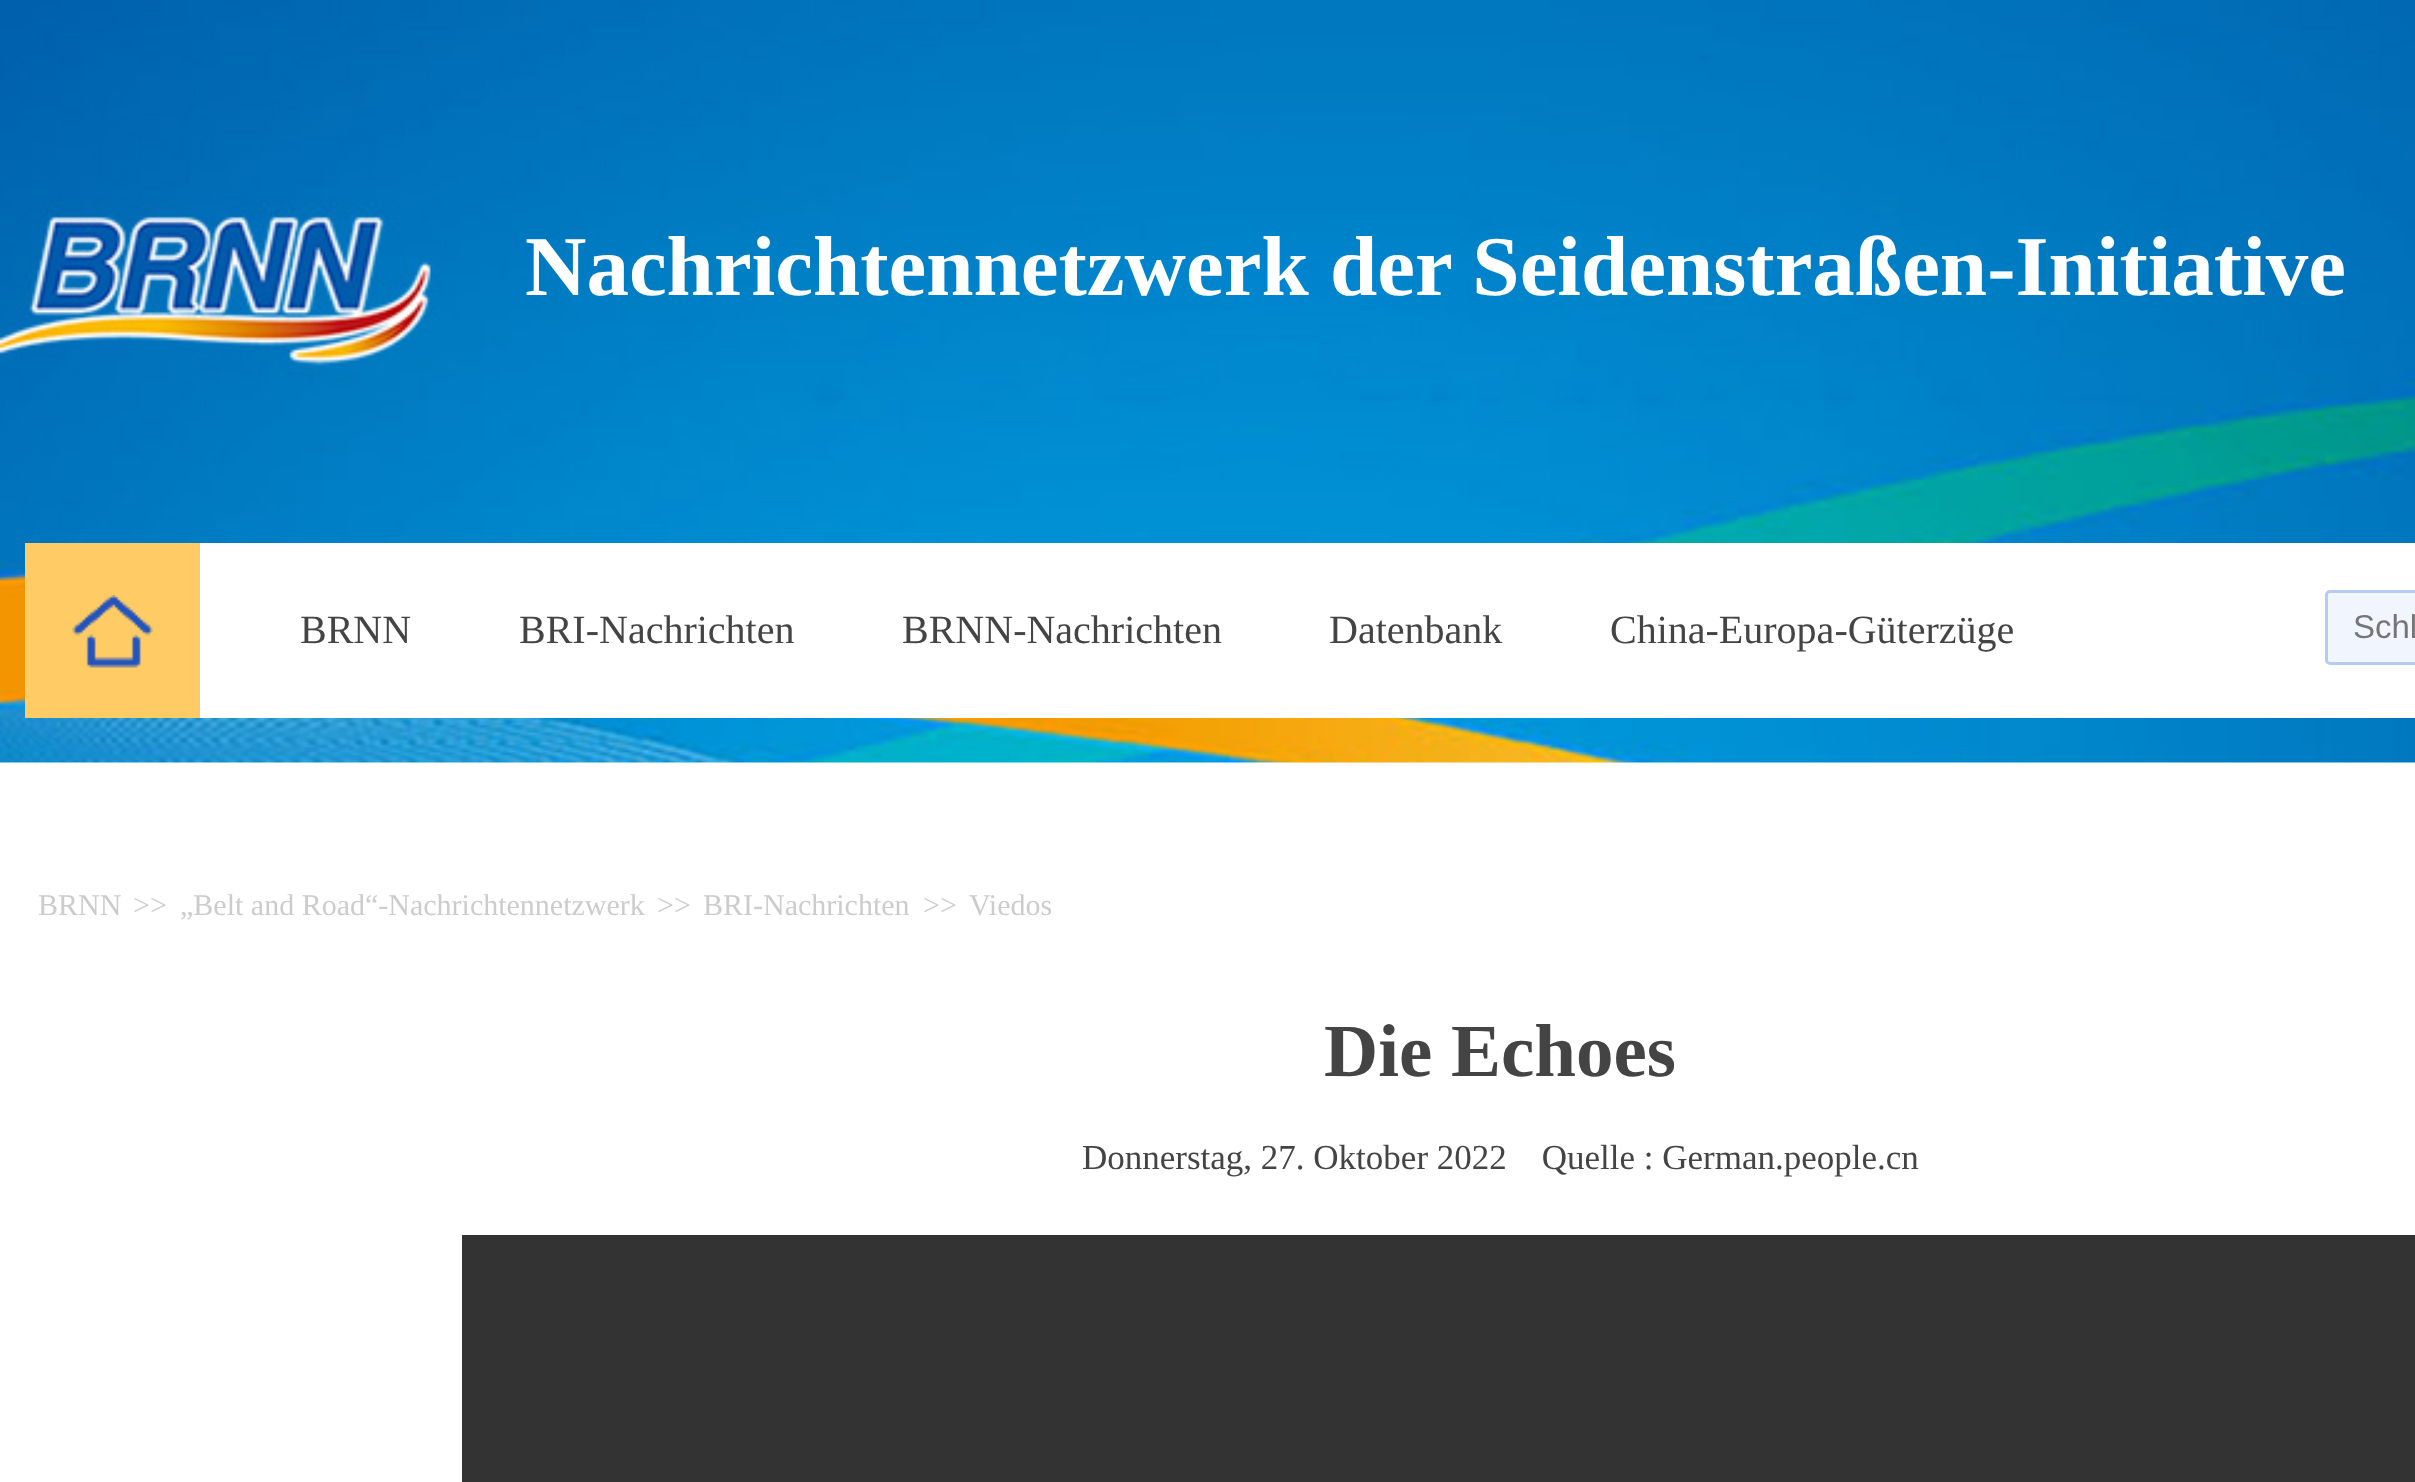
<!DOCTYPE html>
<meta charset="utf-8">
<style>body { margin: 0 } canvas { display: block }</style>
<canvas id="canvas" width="2415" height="1482"></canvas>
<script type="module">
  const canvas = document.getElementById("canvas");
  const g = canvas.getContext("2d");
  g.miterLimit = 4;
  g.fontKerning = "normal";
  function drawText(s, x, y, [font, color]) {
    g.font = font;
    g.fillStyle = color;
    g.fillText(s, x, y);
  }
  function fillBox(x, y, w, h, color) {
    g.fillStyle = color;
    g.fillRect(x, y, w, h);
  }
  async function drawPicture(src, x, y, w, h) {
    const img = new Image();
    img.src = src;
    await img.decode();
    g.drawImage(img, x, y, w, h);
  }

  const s1 = ["bold 85px Liberation Serif", "#FFFFFF"];
  const s2 = ["40px Liberation Serif", "#444444"];
  const s3 = ["33px Liberation Sans", "#757575"];
  const s4 = ["30px Liberation Serif", "#CCCCCC"];
  const s5 = ["bold 75px Liberation Serif", "#444444"];
  const s6 = ["35px Liberation Serif", "#444444"];

  fillBox(0, 0, 2415, 1482, "#FFFFFF");
  await drawPicture("pic1.png", 0, 0, 2415, 763);
  drawText("Nachrichtennetzwerk der Seidenstraßen-Initiative", 525, 295, s1);
  fillBox(200, 543, 2215, 175, "#FFFFFF");
  fillBox(25, 543, 175, 175, "#FFCB65");
  await drawPicture("pic2.png", 72, 595, 81, 73);
  drawText("BRNN", 300, 643, s2);
  drawText("BRI-Nachrichten", 519, 643, s2);
  drawText("BRNN-Nachrichten", 902, 643, s2);
  drawText("Datenbank", 1329, 643, s2);
  drawText("China-Europa-Güterzüge", 1610, 643, s2);
  g.fillStyle = "#F1F5FD";
  g.beginPath();
  g.roundRect(2326.5, 591.5, 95, 72, 3.5);
  g.fill();
  g.strokeStyle = "#B4CCF5";
  g.lineWidth = 3;
  g.stroke();
  drawText("Schl", 2353, 638, s3);
  drawText("BRNN", 38, 915, s4);
  drawText(">>", 133, 915, s4);
  drawText("„Belt and Road“-Nachrichtennetzwerk", 180, 915, s4);
  drawText(">>", 657, 915, s4);
  drawText("BRI-Nachrichten", 703, 915, s4);
  drawText(">>", 923, 915, s4);
  drawText("Viedos", 969, 915, s4);
  drawText("Die Echoes", 1324, 1076, s5);
  drawText("Donnerstag, 27. Oktober 2022 Quelle : German.people.cn", 1082, 1169, s6);
  fillBox(462, 1235, 1953, 247, "#333333");
</script>
